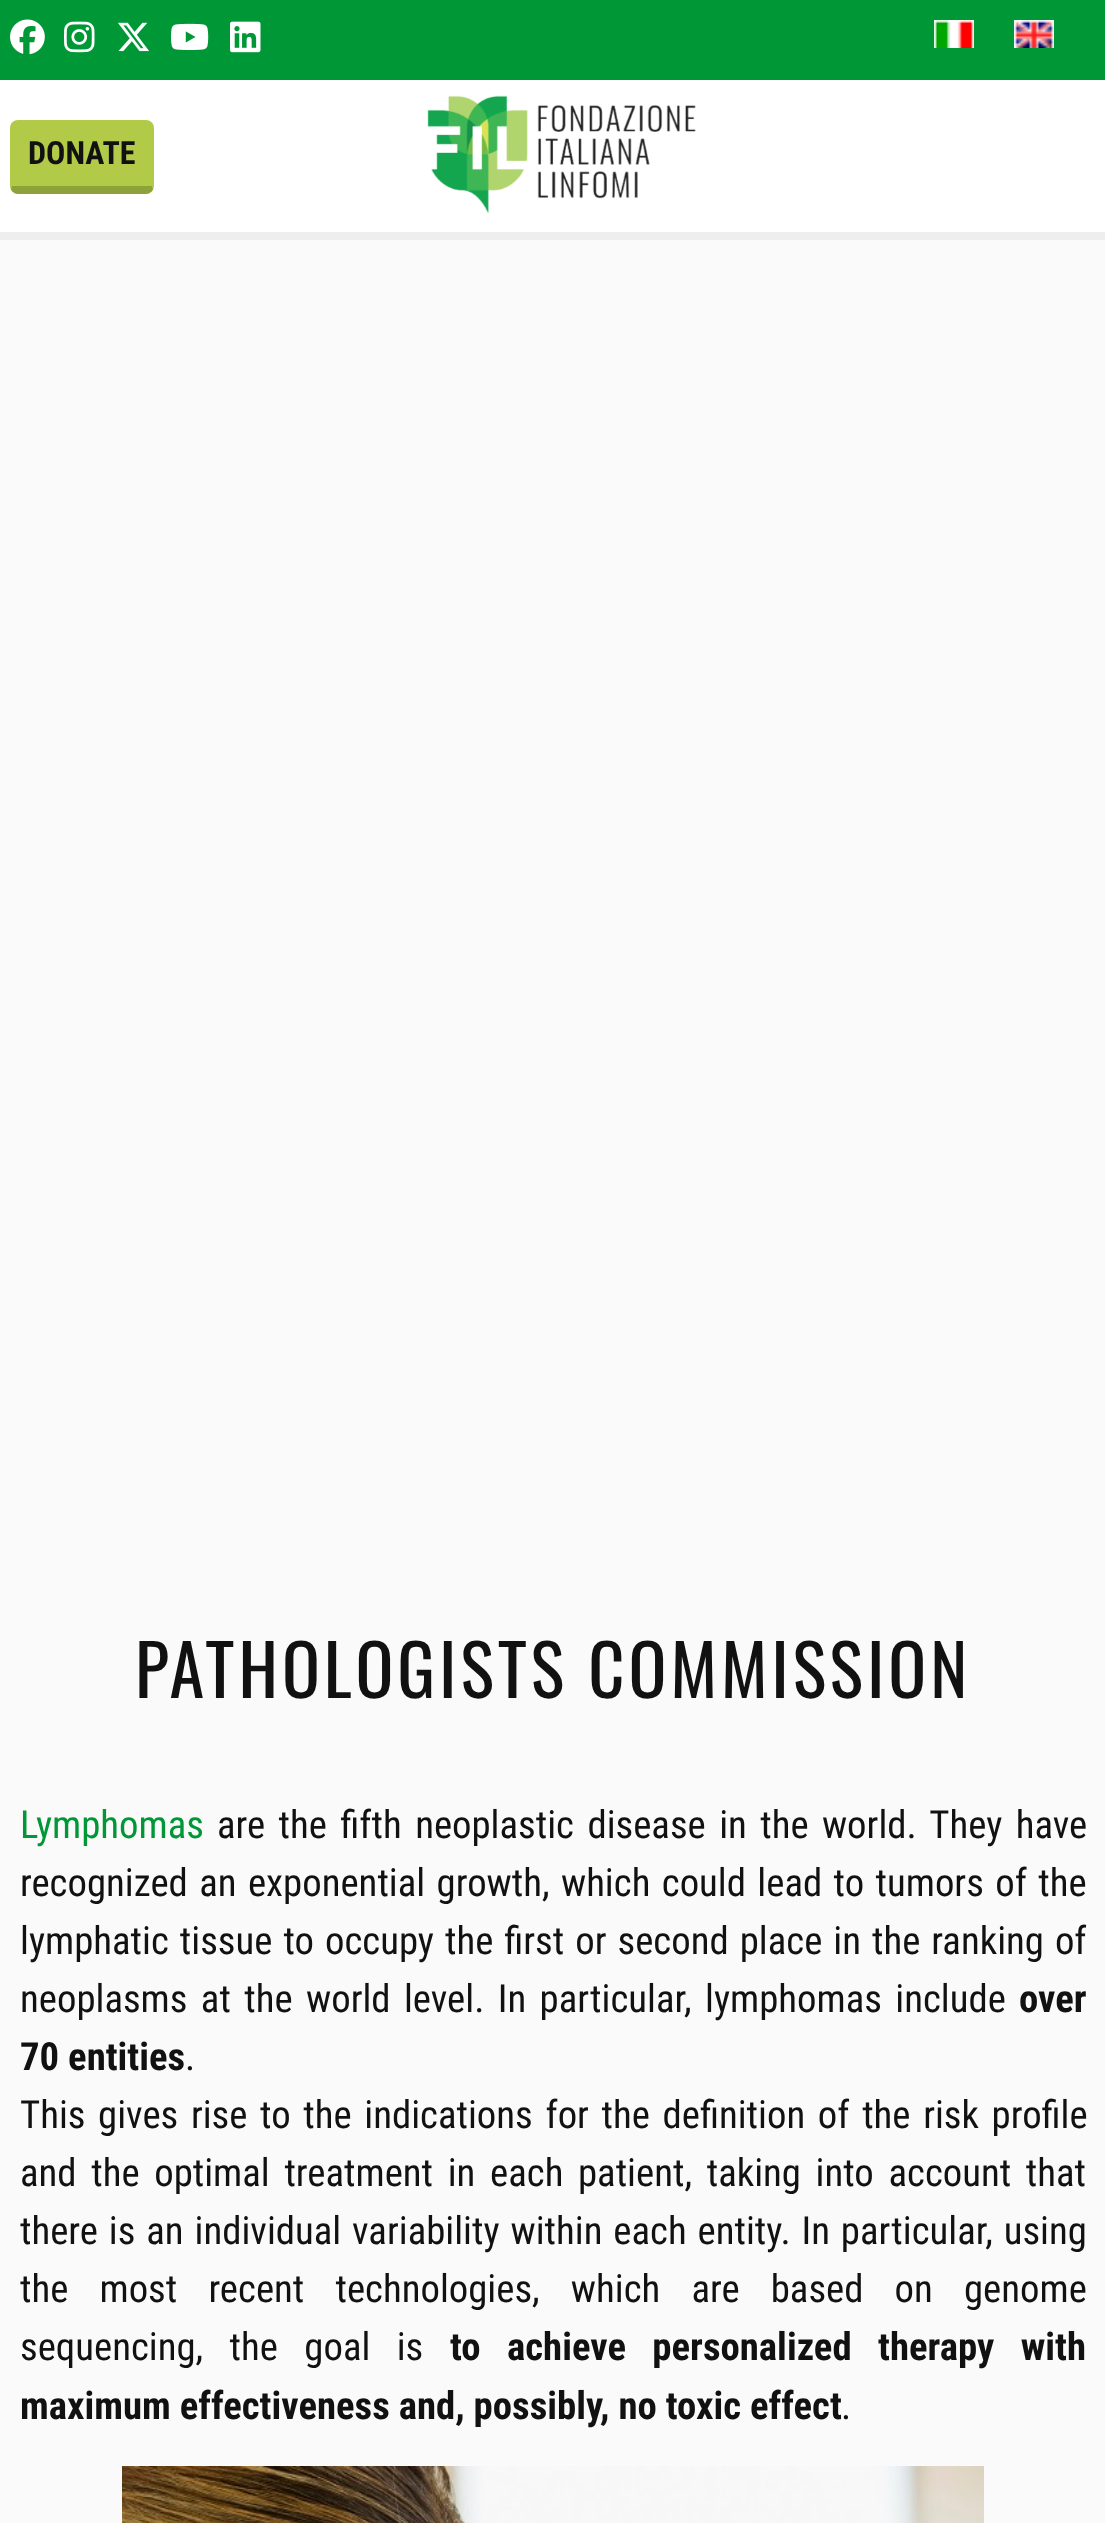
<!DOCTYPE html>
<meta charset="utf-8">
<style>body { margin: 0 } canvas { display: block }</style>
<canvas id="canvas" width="1105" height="2523"></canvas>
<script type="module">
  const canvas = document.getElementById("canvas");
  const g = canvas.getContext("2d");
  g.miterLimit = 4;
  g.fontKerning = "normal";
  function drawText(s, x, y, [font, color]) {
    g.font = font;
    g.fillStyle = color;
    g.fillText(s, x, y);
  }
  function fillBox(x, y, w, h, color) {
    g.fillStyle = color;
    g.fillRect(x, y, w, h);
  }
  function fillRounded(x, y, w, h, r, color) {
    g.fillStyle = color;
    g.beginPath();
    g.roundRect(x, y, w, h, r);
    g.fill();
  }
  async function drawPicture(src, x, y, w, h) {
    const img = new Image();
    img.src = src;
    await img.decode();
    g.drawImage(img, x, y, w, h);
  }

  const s1 = ["bold 32px Roboto Condensed", "#111111"];
  const s2 = ["70.4px Oswald", "#111111"];
  const s3 = ["38.75px Roboto Condensed", "#009836"];
  const s4 = ["38.75px Roboto Condensed", "#111111"];
  const s5 = ["bold 38.75px Roboto Condensed", "#111111"];

  fillBox(0, 0, 1105, 2523, "#FAFAFA");
  fillBox(0, 80, 1105, 152, "#FFFFFF");
  fillBox(0, 232, 1105, 8, "#EEEEEE");
  fillBox(0, 0, 1105, 80, "#009836");
  await drawPicture("pic1.png", 10, 19, 35, 36);
  await drawPicture("pic2.png", 64, 21, 31, 32);
  await drawPicture("pic3.png", 118, 22, 31, 30);
  await drawPicture("pic4.png", 171, 23, 38, 27);
  await drawPicture("pic5.png", 230, 21, 31, 32);
  await drawPicture("pic6.png", 934, 20, 40, 28);
  await drawPicture("pic7.png", 1014, 20, 40, 28);
  fillRounded(10, 120, 144, 74, 8, "#B1CB48");
  g.fillStyle = "rgba(0, 0, 0, 0.2)";
  g.beginPath();
  g.moveTo(18, 194);
  g.lineTo(146, 194);
  g.bezierCurveTo(149, 194, 151, 192, 153, 190);
  g.lineTo(152, 186);
  g.lineTo(12, 186);
  g.lineTo(11, 190);
  g.bezierCurveTo(13, 192, 15, 194, 18, 194);
  g.closePath();
  g.fill();
  drawText("DONATE", 28, 164, s1);
  await drawPicture("pic8.png", 427, 95, 269, 119);
  g.letterSpacing = "4px";
  drawText("PATHOLOGISTS COMMISSION", 135, 1698, s2);
  g.letterSpacing = "0px";
  drawText("Lymphomas", 20, 1838, s3);
  g.wordSpacing = "4.5px";
  drawText("are the fifth neoplastic disease in the world. They have", 217, 1838, s4);
  g.wordSpacing = "2.5px";
  drawText("recognized an exponential growth, which could lead to tumors of the", 20, 1896, s4);
  g.wordSpacing = "2.1px";
  drawText("lymphatic tissue to occupy the first or second place in the ranking of", 20, 1954, s4);
  g.wordSpacing = "4.5px";
  drawText("neoplasms at the world level. In particular, lymphomas include", 20, 2012, s4);
  g.wordSpacing = "0px";
  drawText("over", 1019, 2012, s5);
  drawText("70 entities", 20, 2070, s5);
  drawText(".", 185, 2070, s4);
  g.wordSpacing = "3.75px";
  drawText("This gives rise to the indications for the definition of the risk profile", 20, 2128, s4);
  g.wordSpacing = "5.75px";
  drawText("and the optimal treatment in each patient, taking into account that", 20, 2186, s4);
  g.wordSpacing = "2px";
  drawText("there is an individual variability within each entity. In particular, using", 20, 2244, s4);
  g.wordSpacing = "22.25px";
  drawText("the most recent technologies, which are based on genome", 20, 2302, s4);
  g.wordSpacing = "17.5px";
  drawText("sequencing, the goal is", 20, 2360, s4);
  drawText("to achieve personalized therapy with", 450, 2360, s5);
  g.wordSpacing = "0px";
  drawText("maximum effectiveness and, possibly, no toxic effect", 20, 2419, s5);
  drawText(".", 841, 2419, s4);
  await drawPicture("pic9.png", 122, 2466, 862, 57);
</script>
